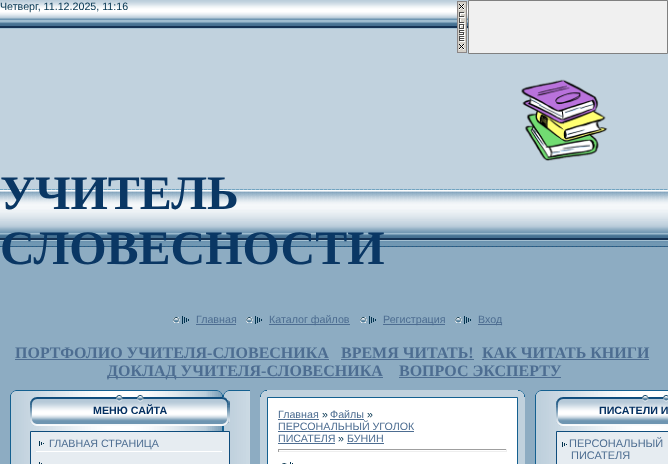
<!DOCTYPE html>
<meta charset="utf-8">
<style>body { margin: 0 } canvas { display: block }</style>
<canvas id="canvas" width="668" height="464"></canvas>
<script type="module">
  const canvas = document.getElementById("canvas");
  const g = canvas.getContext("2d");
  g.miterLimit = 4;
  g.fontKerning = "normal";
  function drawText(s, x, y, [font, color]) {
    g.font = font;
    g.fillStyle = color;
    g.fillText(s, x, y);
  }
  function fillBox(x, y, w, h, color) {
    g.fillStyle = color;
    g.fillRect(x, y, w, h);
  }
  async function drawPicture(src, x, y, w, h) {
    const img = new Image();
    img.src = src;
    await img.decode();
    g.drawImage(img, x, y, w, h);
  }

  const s1 = ["10.7px Liberation Sans", "#01324E"];
  const s2 = ["bold 48px Liberation Serif", "#0A3764"];
  const s3 = ["10.7px Liberation Sans", "#4D6D91"];
  const s4 = ["bold 16px Liberation Serif", "#4D6D91"];
  const s5 = ["bold 10.7px Liberation Sans", "#032F60"];
  const s6 = ["11px Liberation Sans", "#4D6D91"];

  fillBox(0, 0, 668, 464, "#8DACC2");
  await drawPicture("pic1.png", 0, 0, 668, 247);
  drawText("Четверг, 11.12.2025, 11:16", 0, 10, s1);
  await drawPicture("pic2.png", 521, 79, 87, 82);
  drawText("УЧИТЕЛЬ", 0, 209, s2);
  drawText("СЛОВЕСНОСТИ", 0, 264, s2);
  await drawPicture("pic3.png", 173, 316, 16, 8);
  drawText("Главная", 196, 323, s3);
  fillBox(196, 324, 40, 1, "#4D6D91");
  await drawPicture("pic3.png", 246, 316, 16, 8);
  fillBox(269, 324, 81, 1, "#4D6D91");
  drawText("Каталог файлов", 269, 323, s3);
  await drawPicture("pic3.png", 360, 316, 16, 8);
  fillBox(383, 324, 62, 1, "#4D6D91");
  drawText("Регистрация", 383, 323, s3);
  await drawPicture("pic3.png", 455, 316, 16, 8);
  fillBox(478, 324, 24, 1, "#4D6D91");
  drawText("Вход", 478, 323, s3);
  drawText("ПОРТФОЛИО УЧИТЕЛЯ-СЛОВЕСНИКА", 15, 358, s4);
  fillBox(15, 359, 314, 1, "#4D6D91");
  drawText("ВРЕМЯ ЧИТАТЬ!", 341, 358, s4);
  fillBox(341, 359, 133, 1, "#4D6D91");
  drawText("КАК ЧИТАТЬ КНИГИ", 482, 358, s4);
  fillBox(482, 359, 167, 1, "#4D6D91");
  fillBox(107, 377, 276, 1, "#4D6D91");
  drawText("ДОКЛАД УЧИТЕЛЯ-СЛОВЕСНИКА", 107, 376, s4);
  drawText("ВОПРОС ЭКСПЕРТУ", 399, 376, s4);
  fillBox(399, 377, 162, 1, "#4D6D91");
  await drawPicture("pic4.png", 10, 395, 240, 69);
  await drawPicture("pic5.png", 10, 390, 240, 5);
  await drawPicture("pic6.png", 30, 395, 200, 31);
  drawText("МЕНЮ САЙТА", 93, 414, s5);
  g.fillStyle = "#E6ECF1";
  g.beginPath();
  g.rect(30.5, 431.5, 199, 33);
  g.fill();
  g.strokeStyle = "#0E4C7C";
  g.stroke();
  await drawPicture("pic7.png", 39, 441, 5, 5);
  fillBox(36, 451, 186, 1, "#FFFFFF");
  drawText("ГЛАВНАЯ СТРАНИЦА", 49, 447, s3);
  await drawPicture("pic8.png", 39, 462, 3, 2);
  await drawPicture("pic9.png", 260, 390, 7, 7);
  fillBox(267, 390, 251, 7, "#C0D1DD");
  await drawPicture("pic10.png", 518, 390, 7, 7);
  fillBox(260, 397, 7, 67, "#C0D1DD");
  g.fillStyle = "#FFFFFF";
  g.beginPath();
  g.rect(267.5, 397.5, 250, 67);
  g.fill();
  g.strokeStyle = "#146090";
  g.stroke();
  await drawPicture("pic11.png", 457, 1, 10, 52);
  g.fillStyle = "#F0F0F0";
  g.beginPath();
  g.rect(468.5, 0.5, 199, 53);
  g.fill();
  g.strokeStyle = "#808080";
  g.stroke();
  drawText("Главная", 278, 418, s3);
  fillBox(278, 419, 41, 1, "#4D6D91");
  drawText("»", 322, 418, s1);
  drawText("Файлы", 330, 418, s3);
  fillBox(330, 419, 34, 1, "#4D6D91");
  drawText("»", 367, 418, s1);
  drawText("ПЕРСОНАЛЬНЫЙ УГОЛОК", 278, 430, s3);
  fillBox(278, 431, 136, 1, "#4D6D91");
  drawText("ПИСАТЕЛЯ", 278, 442, s3);
  fillBox(278, 443, 57, 1, "#4D6D91");
  drawText("»", 338, 442, s1);
  drawText("БУНИН", 347, 442, s3);
  fillBox(347, 443, 37, 1, "#4D6D91");
  fillBox(278, 449, 229, 1, "#9F9F9F");
  fillBox(506, 449, 1, 3, "#EEEEEE");
  fillBox(278, 451, 229, 1, "#EEEEEE");
  fillBox(278, 449, 1, 3, "#9F9F9F");
  await drawPicture("pic12.png", 282, 462, 11, 2);
  fillBox(518, 397, 7, 67, "#C0D1DD");
  await drawPicture("pic13.png", 535, 395, 133, 69);
  await drawPicture("pic14.png", 535, 390, 133, 5);
  await drawPicture("pic15.png", 556, 395, 112, 31);
  drawText("ПИСАТЕЛИ И", 599, 414, s5);
  g.fillStyle = "#E6ECF1";
  g.beginPath();
  g.rect(556.5, 431.5, 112, 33);
  g.fill();
  g.strokeStyle = "#0E4C7C";
  g.stroke();
  await drawPicture("pic7.png", 562, 442, 5, 5);
  drawText("ПЕРСОНАЛЬНЫЙ", 569, 447, s6);
  drawText("ПИСАТЕЛЯ", 571, 459, s6);
</script>
